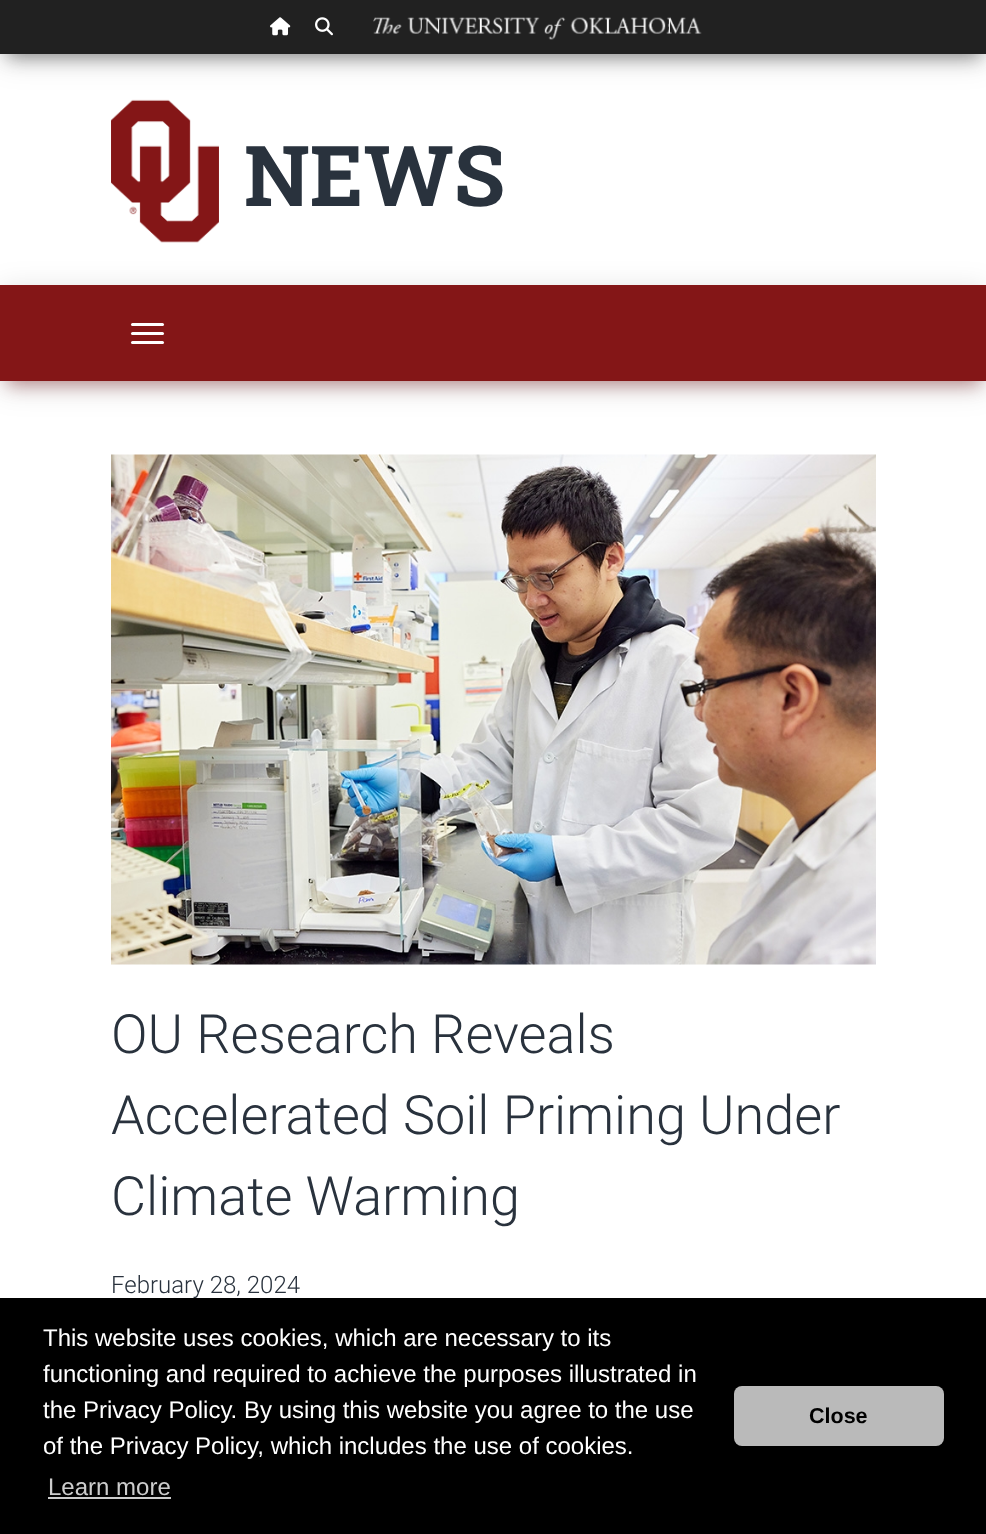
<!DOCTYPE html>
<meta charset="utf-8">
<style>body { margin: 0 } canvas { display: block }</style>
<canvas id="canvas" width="986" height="1534"></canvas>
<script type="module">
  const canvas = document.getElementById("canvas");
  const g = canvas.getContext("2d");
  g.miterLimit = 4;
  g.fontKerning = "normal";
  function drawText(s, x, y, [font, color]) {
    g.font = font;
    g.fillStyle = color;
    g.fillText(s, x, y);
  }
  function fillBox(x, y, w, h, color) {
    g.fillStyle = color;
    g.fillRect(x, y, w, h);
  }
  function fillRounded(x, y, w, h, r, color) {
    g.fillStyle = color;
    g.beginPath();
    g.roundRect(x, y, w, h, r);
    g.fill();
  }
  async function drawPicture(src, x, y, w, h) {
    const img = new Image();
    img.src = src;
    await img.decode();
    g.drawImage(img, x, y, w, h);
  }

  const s1 = ["bold 84px Roboto Slab", "#29323D"];
  const s2 = ["300 54px Roboto", "#29323D"];
  const s3 = ["300 24px Roboto", "#29323D"];
  const s4 = ["24px Liberation Sans", "#FFFFFF"];
  const s5 = ["24px Liberation Sans", "#CCCCCC"];
  const s6 = ["bold 21.5px Liberation Sans", "#000000"];

  fillBox(0, 0, 986, 1534, "#FFFFFF");
  g.fillStyle = "rgba(33, 33, 33, 0.46)";
  g.filter = "blur(9px)";
  g.beginPath();
  g.rect(8, 18, 972, 39);
  g.fill();
  g.filter = "none";
  await drawPicture("pic4.png", 111, 99, 108, 144);
  g.fillStyle = "rgba(0, 0, 0, 0.14)";
  g.filter = "blur(15px)";
  g.beginPath();
  g.rect(0, 6, 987, 54);
  g.fill();
  g.filter = "none";
  fillBox(0, 0, 986, 54, "#212121");
  await drawPicture("pic1.png", 270, 17, 21, 19);
  await drawPicture("pic2.png", 315, 17, 18, 19);
  await drawPicture("pic3.png", 373, 17, 329, 23);
  drawText("NEWS", 244, 206, s1);
  g.fillStyle = "rgba(132, 22, 23, 0.46)";
  g.filter = "blur(9px)";
  g.beginPath();
  g.rect(8, 303, 972, 81);
  g.fill();
  g.filter = "none";
  g.fillStyle = "rgba(0, 0, 0, 0.14)";
  g.filter = "blur(15px)";
  g.beginPath();
  g.rect(0, 291, 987, 96);
  g.fill();
  g.filter = "none";
  fillBox(0, 285, 986, 96, "#841617");
  fillRounded(131, 323, 33, 3, 1.5, "#FFFFFF");
  fillRounded(131, 332, 33, 3, 1.5, "#FFFFFF");
  fillRounded(131, 341, 33, 3, 1.5, "#FFFFFF");
  await drawPicture("pic5.png", 111, 454, 765, 511);
  drawText("OU Research Reveals", 111, 1053, s2);
  drawText("Accelerated Soil Priming Under", 111, 1134, s2);
  drawText("Climate Warming", 111, 1215, s2);
  drawText("February 28, 2024", 111, 1293, s3);
  fillBox(0, 1298, 986, 236, "#000000");
  drawText("This website uses cookies, which are necessary to its", 43, 1346, s4);
  drawText("functioning and required to achieve the purposes illustrated in", 43, 1382, s4);
  drawText("the Privacy Policy. By using this website you agree to the use", 43, 1418, s4);
  drawText("of the Privacy Policy, which includes the use of cookies.", 43, 1454, s4);
  drawText("Learn more", 48, 1495, s5);
  fillBox(48, 1497, 123, 2, "#CCCCCC");
  fillRounded(734, 1386, 210, 60, 8, "#BABABA");
  drawText("Close", 809, 1423, s6);
</script>
